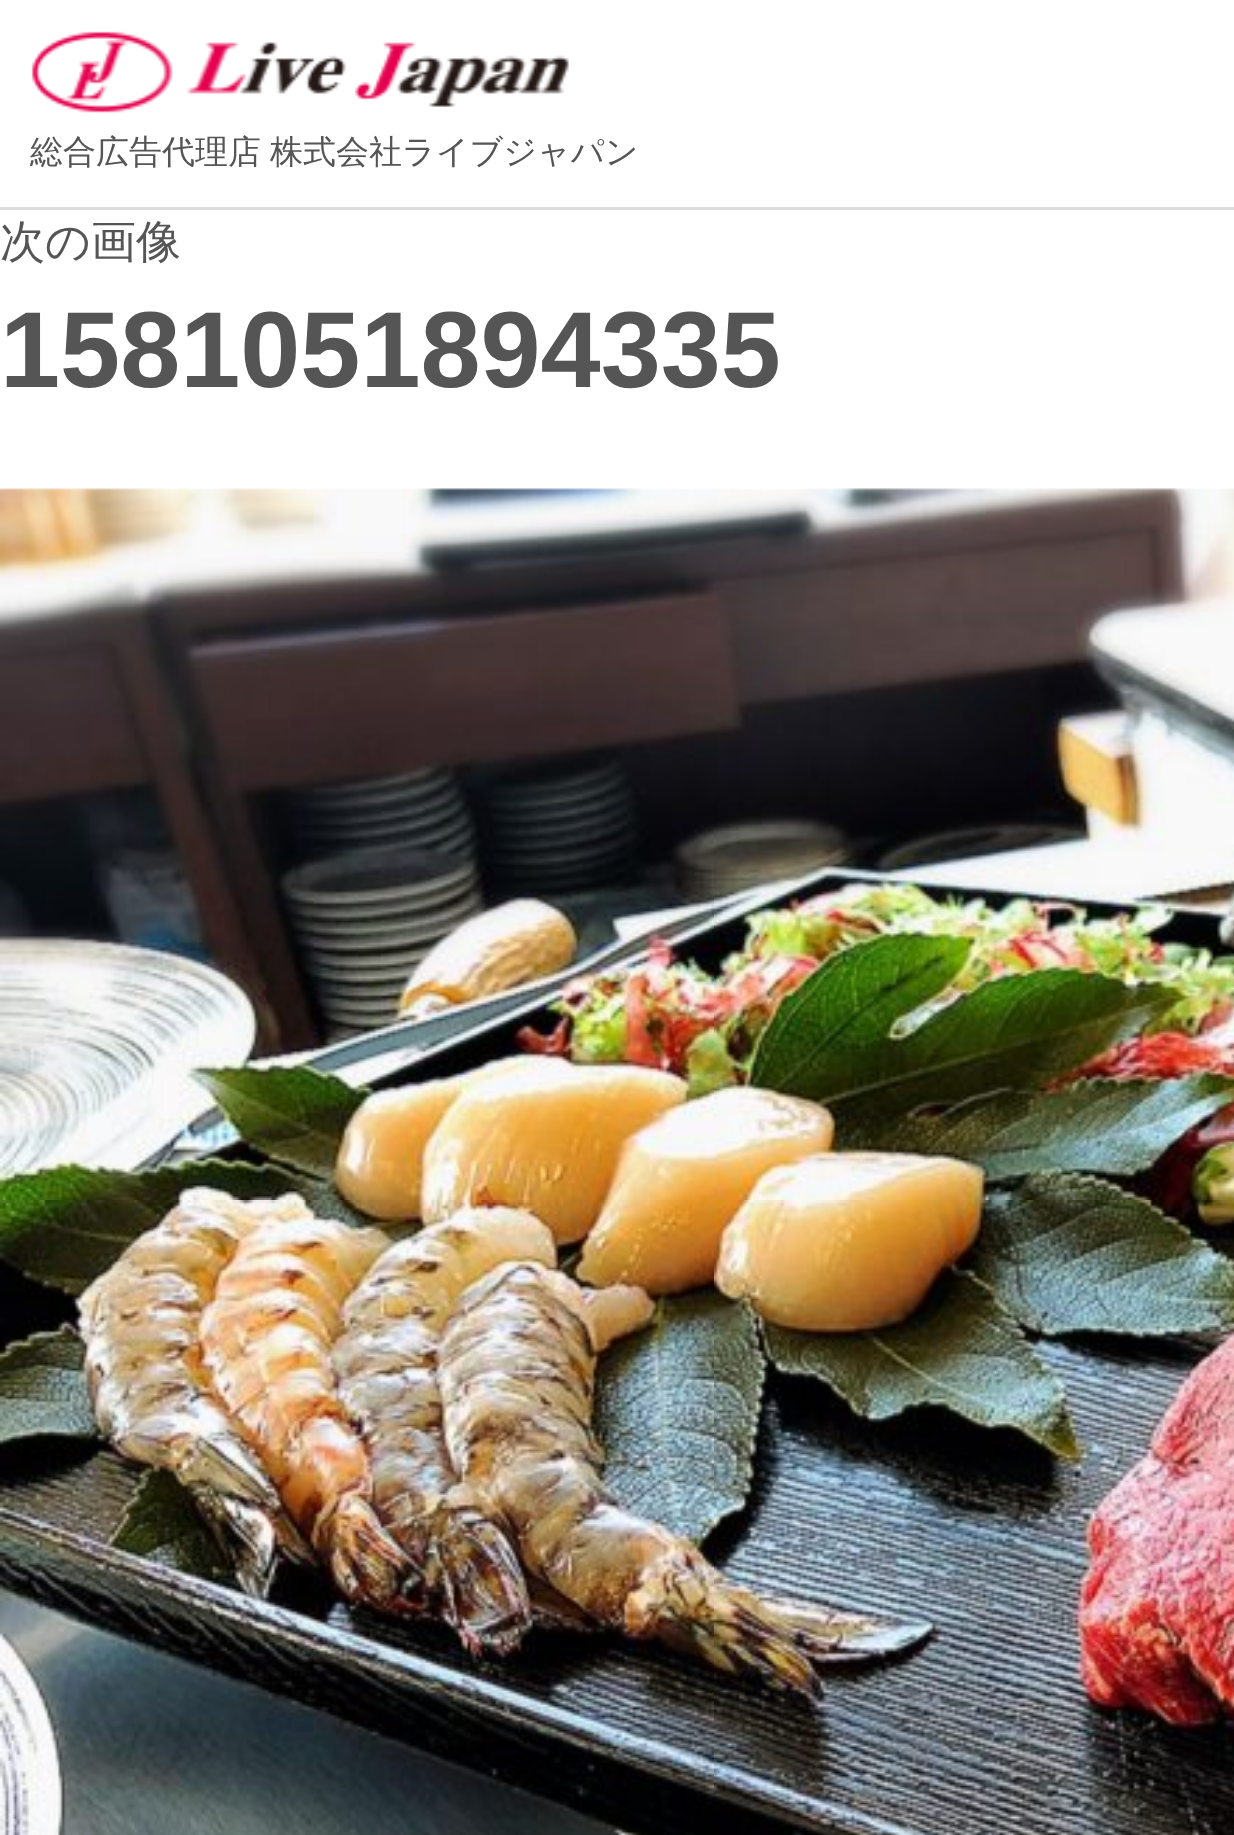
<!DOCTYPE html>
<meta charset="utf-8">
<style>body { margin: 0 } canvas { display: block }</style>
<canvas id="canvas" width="1234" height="1835"></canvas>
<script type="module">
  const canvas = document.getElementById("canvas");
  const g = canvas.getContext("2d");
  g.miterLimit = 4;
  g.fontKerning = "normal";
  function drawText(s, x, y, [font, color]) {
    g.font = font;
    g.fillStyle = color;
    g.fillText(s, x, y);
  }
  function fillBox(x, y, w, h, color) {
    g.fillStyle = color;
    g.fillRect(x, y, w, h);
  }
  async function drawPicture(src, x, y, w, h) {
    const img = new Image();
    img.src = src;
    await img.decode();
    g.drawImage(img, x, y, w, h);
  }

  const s1 = ["500 33px WenQuanYi Zen Hei", "#555555"];
  const s2 = ["500 45px WenQuanYi Zen Hei", "#555555"];
  const s3 = ["bold 108px Liberation Sans", "#555555"];

  fillBox(0, 0, 1234, 1835, "#FFFFFF");
  fillBox(0, 207, 1234, 3, "#DDDDDD");
  await drawPicture("pic1.png", 31, 31, 538, 82);
  drawText("総合広告代理店", 30, 163, s1);
  drawText("株式会社ライブジャパン", 270, 163, s1);
  drawText("次の画像", 0, 257, s2);
  drawText("1581051894335", 0, 387, s3);
  await drawPicture("pic2.png", 0, 488, 1234, 1347);
</script>
